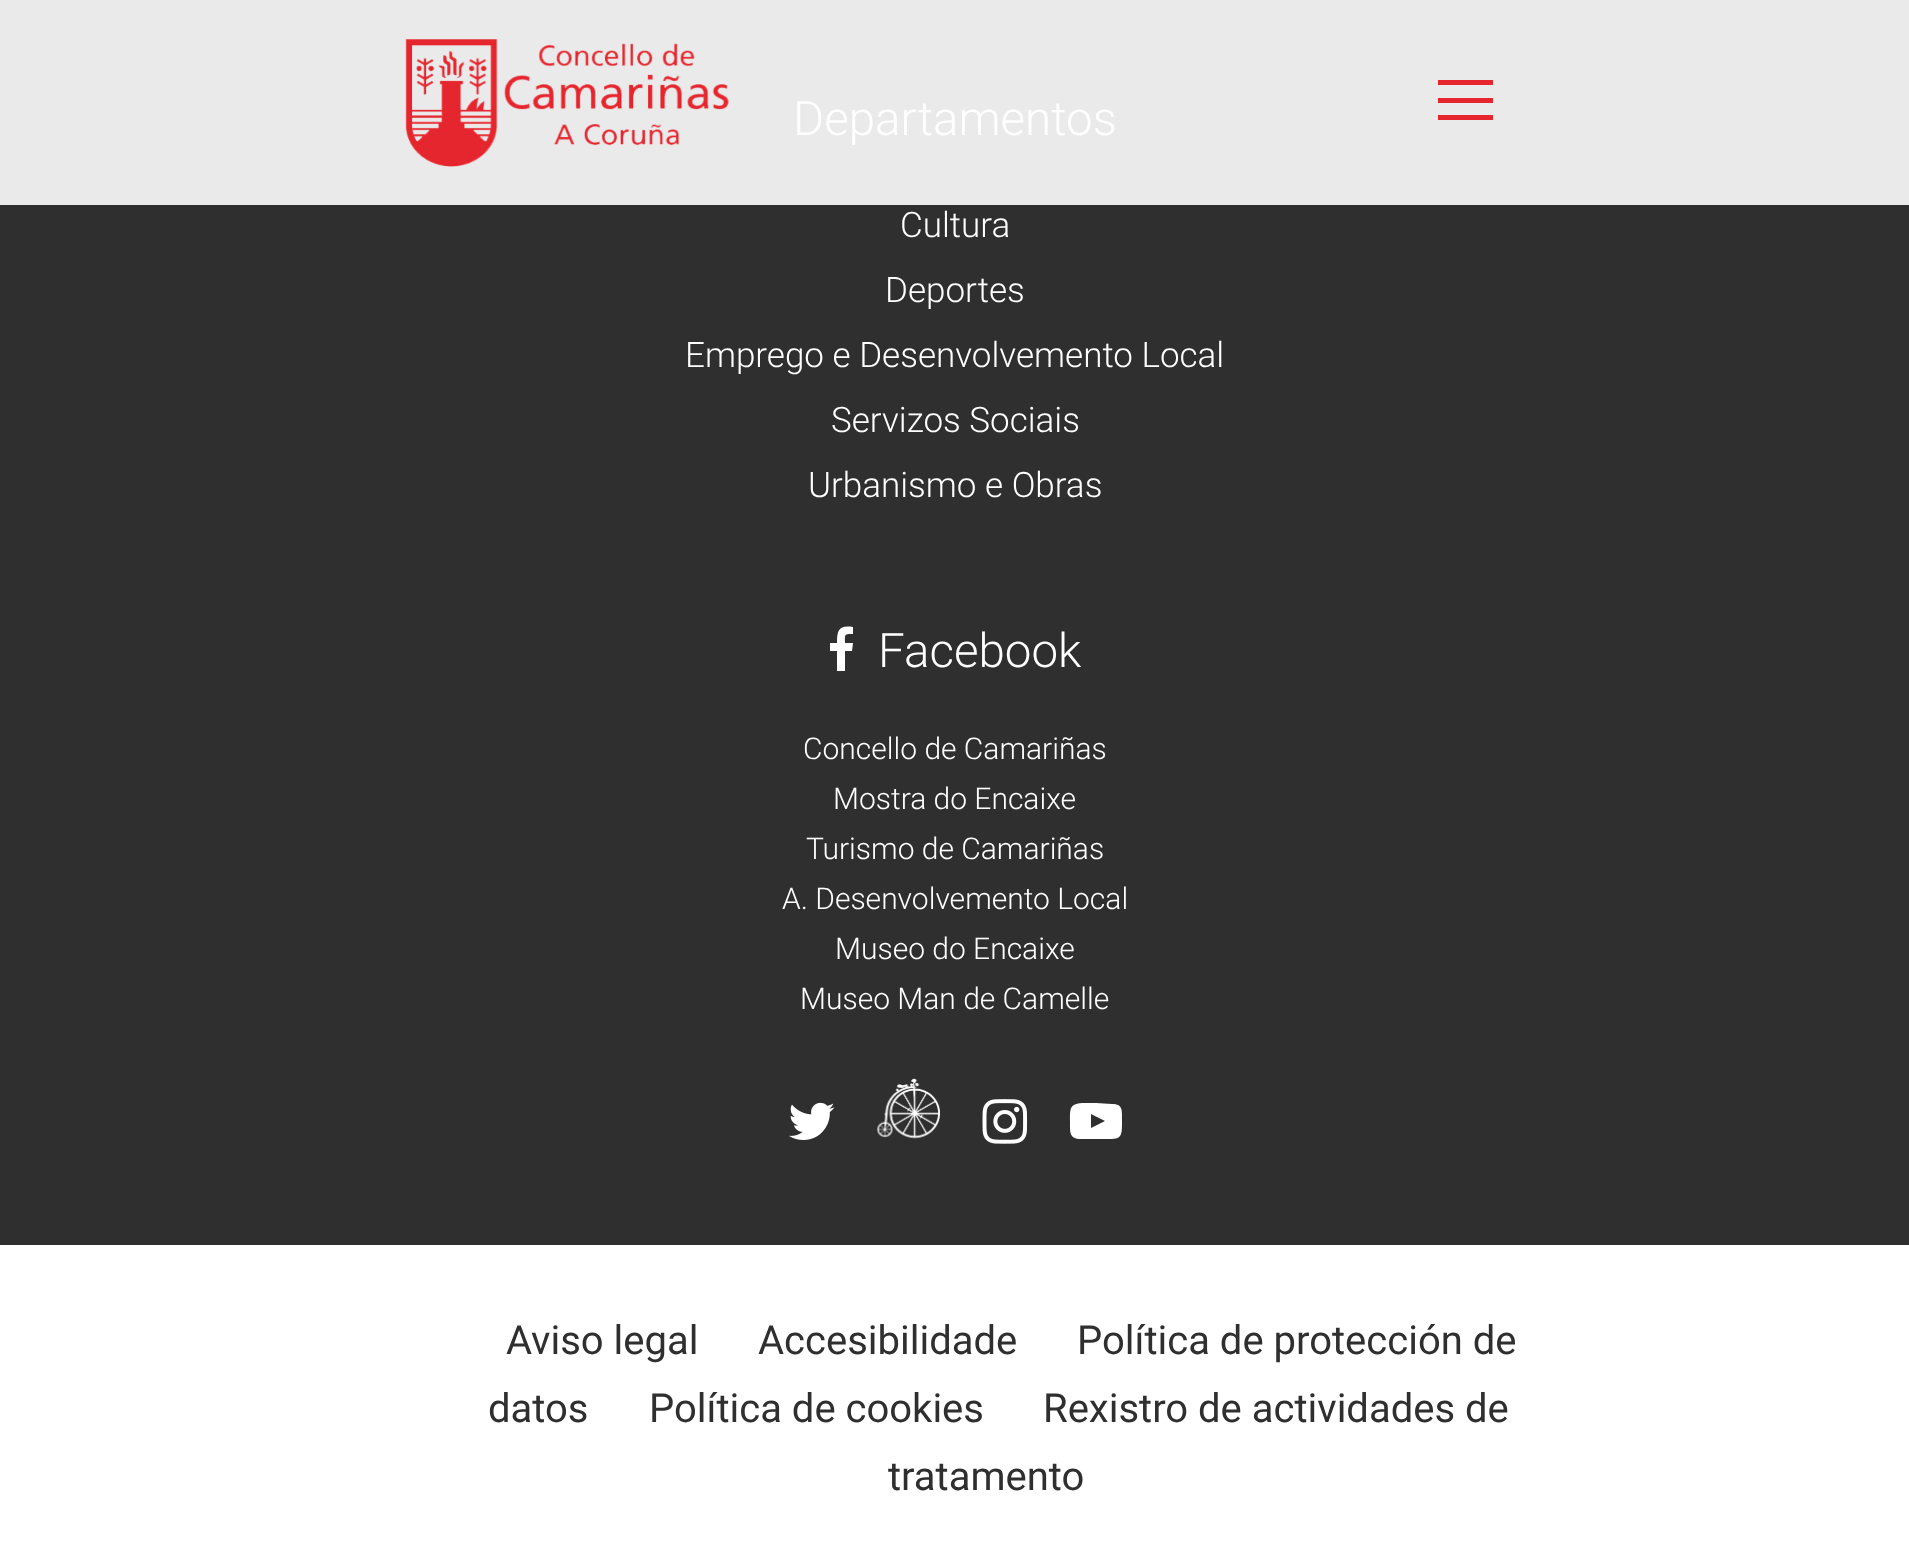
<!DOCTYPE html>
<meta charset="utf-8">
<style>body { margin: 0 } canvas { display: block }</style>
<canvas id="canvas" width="1909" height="1559"></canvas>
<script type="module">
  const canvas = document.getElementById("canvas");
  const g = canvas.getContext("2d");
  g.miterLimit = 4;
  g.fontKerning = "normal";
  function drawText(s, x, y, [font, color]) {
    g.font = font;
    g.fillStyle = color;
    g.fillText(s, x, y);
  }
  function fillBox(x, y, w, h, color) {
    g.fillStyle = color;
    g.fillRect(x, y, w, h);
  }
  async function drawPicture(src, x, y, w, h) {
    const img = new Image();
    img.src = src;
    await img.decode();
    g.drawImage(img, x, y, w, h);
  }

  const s1 = ["300 47.5px Roboto", "#FFFFFF"];
  const s2 = ["300 35px Roboto", "#FFFFFF"];
  const s3 = ["300 30px Roboto", "#FFFFFF"];
  const s4 = ["40px Roboto", "#2F2F2F"];

  fillBox(0, 0, 1909, 1559, "#FFFFFF");
  fillBox(0, 0, 1909, 205, "#EAEAEA");
  await drawPicture("pic1.png", 405, 39, 324, 128);
  fillBox(1438, 80, 55, 5, "#E5262E");
  fillBox(1438, 98, 55, 5, "#E5262E");
  fillBox(1438, 115, 55, 5, "#E5262E");
  fillBox(0, 205, 1909, 1040, "#2F2F2F");
  drawText("Departamentos", 793, 135, s1);
  drawText("Cultura", 900, 237, s2);
  drawText("Deportes", 885, 302, s2);
  drawText("Emprego e Desenvolvemento Local", 685, 367, s2);
  drawText("Servizos Sociais", 831, 432, s2);
  drawText("Urbanismo e Obras", 808, 497, s2);
  g.beginPath();
  g.moveTo(853, 627);
  g.lineTo(853, 634);
  g.bezierCurveTo(844, 634, 845, 634, 845, 643);
  g.lineTo(853, 643);
  g.lineTo(852, 651);
  g.lineTo(845, 651);
  g.lineTo(845, 671);
  g.lineTo(837, 671);
  g.lineTo(837, 651);
  g.lineTo(830, 651);
  g.lineTo(830, 643);
  g.lineTo(837, 643);
  g.bezierCurveTo(837, 630, 839, 625, 853, 627);
  g.closePath();
  g.fill();
  drawText("Facebook", 878, 667, s1);
  drawText("Concello de Camariñas", 803, 759, s3);
  drawText("Mostra do Encaixe", 833, 809, s3);
  drawText("Turismo de Camariñas", 806, 859, s3);
  drawText("A. Desenvolvemento Local", 782, 909, s3);
  drawText("Museo do Encaixe", 835, 959, s3);
  drawText("Museo Man de Camelle", 800, 1009, s3);
  await drawPicture("pic2.png", 789, 1102, 46, 38);
  await drawPicture("pic3.png", 877, 1078, 63, 61);
  await drawPicture("pic4.png", 982, 1099, 46, 45);
  g.beginPath();
  g.moveTo(1091, 1128);
  g.lineTo(1105, 1121);
  g.lineTo(1091, 1114);
  g.closePath();
  g.moveTo(1096, 1103);
  g.lineTo(1112, 1104);
  g.bezierCurveTo(1123, 1104, 1122, 1110, 1122, 1121);
  g.bezierCurveTo(1122, 1135, 1122, 1139, 1110, 1139);
  g.lineTo(1081, 1139);
  g.bezierCurveTo(1069, 1139, 1070, 1132, 1070, 1121);
  g.bezierCurveTo(1070, 1108, 1070, 1104, 1082, 1103);
  g.closePath();
  g.fill();
  drawText("Aviso legal", 506, 1354, s4);
  drawText("Accesibilidade", 758, 1354, s4);
  drawText("Política de protección de", 1077, 1354, s4);
  drawText("datos", 488, 1422, s4);
  drawText("Política de cookies", 649, 1422, s4);
  drawText("Rexistro de actividades de", 1043, 1422, s4);
  drawText("tratamento", 888, 1490, s4);
</script>
